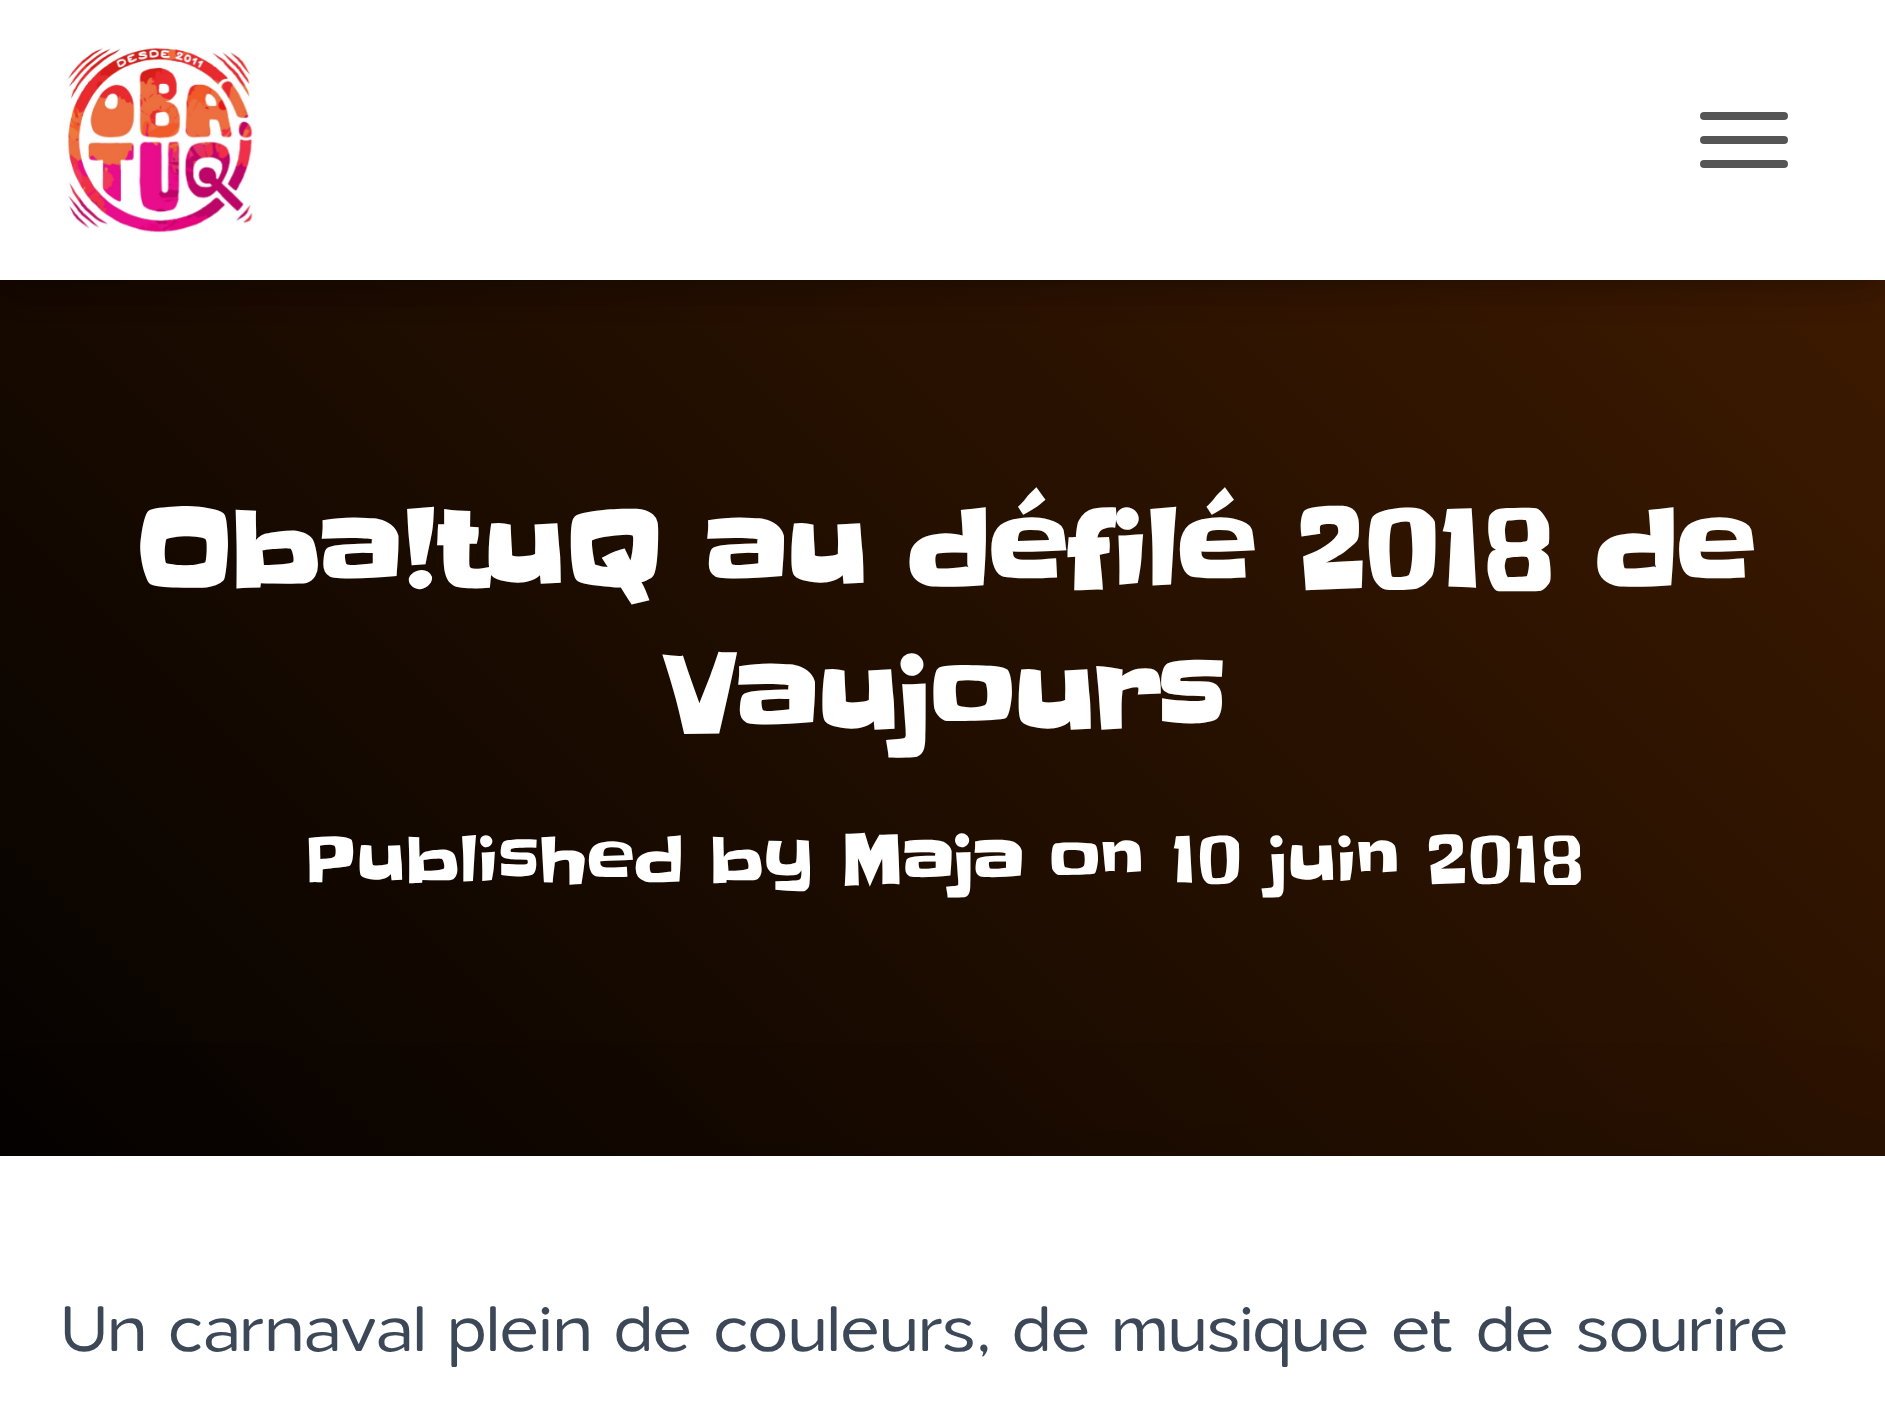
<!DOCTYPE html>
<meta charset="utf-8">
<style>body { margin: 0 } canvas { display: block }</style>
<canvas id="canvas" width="1885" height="1415"></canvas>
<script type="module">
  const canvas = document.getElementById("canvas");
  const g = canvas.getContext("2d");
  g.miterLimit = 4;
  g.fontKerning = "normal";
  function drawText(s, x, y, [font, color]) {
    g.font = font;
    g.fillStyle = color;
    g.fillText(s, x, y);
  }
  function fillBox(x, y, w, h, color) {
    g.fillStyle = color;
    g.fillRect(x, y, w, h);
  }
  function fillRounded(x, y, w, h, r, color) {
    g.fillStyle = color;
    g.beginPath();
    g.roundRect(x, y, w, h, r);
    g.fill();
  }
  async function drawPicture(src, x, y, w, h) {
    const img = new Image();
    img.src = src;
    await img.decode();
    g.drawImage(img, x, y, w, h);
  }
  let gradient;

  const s1 = ["bold 104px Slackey", "#FFFFFF"];
  const s2 = ["64px Slackey", "#FFFFFF"];
  const s3 = ["bold 64px Slackey", "#FFFFFF"];
  const s4 = ["64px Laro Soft", "#3C4858"];

  fillBox(0, 0, 1885, 1415, "#FFFFFF");
  gradient = g.createLinearGradient(123, 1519, 1765, -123);
  gradient.addColorStop(0, "#000000");
  gradient.addColorStop(1, "#421C00");
  g.fillStyle = gradient;
  g.fillRect(0, 280, 1885, 876);
  g.fillStyle = "rgba(0, 0, 0, 0.1)";
  g.filter = "blur(10px)";
  g.beginPath();
  g.rect(8, 24, 1872, 264);
  g.fill();
  g.filter = "none";
  g.fillStyle = "rgba(0, 0, 0, 0.12)";
  g.filter = "blur(20px)";
  g.beginPath();
  g.rect(0, 4, 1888, 280);
  g.fill();
  g.filter = "none";
  g.fillStyle = "rgba(0, 0, 0, 0.42)";
  g.filter = "blur(20px)";
  g.beginPath();
  g.rect(24, 28, 1840, 232);
  g.fill();
  g.filter = "none";
  fillBox(0, 0, 1885, 280, "#FFFFFF");
  await drawPicture("pic1.png", 67, 47, 186, 186);
  fillRounded(1700, 112, 88, 8, 4, "#555555");
  fillRounded(1700, 136, 88, 8, 4, "#555555");
  fillRounded(1700, 160, 88, 8, 4, "#555555");
  drawText("Oba!tuQ au défilé 2018 de", 134, 588, s1);
  drawText("Vaujours", 663, 734, s1);
  drawText("Published by", 303, 883, s2);
  drawText("Maja", 840, 883, s3);
  drawText("on 10 juin 2018", 1049, 883, s2);
  g.fillStyle = "rgba(0, 0, 0, 0.12)";
  g.filter = "blur(60px)";
  g.beginPath();
  g.rect(-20, 1160, 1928, 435);
  g.fill();
  g.filter = "none";
  fillBox(0, 1156, 1885, 259, "#FFFFFF");
  drawText("Un carnaval plein de couleurs, de musique et de sourire", 60, 1351, s4);
</script>
